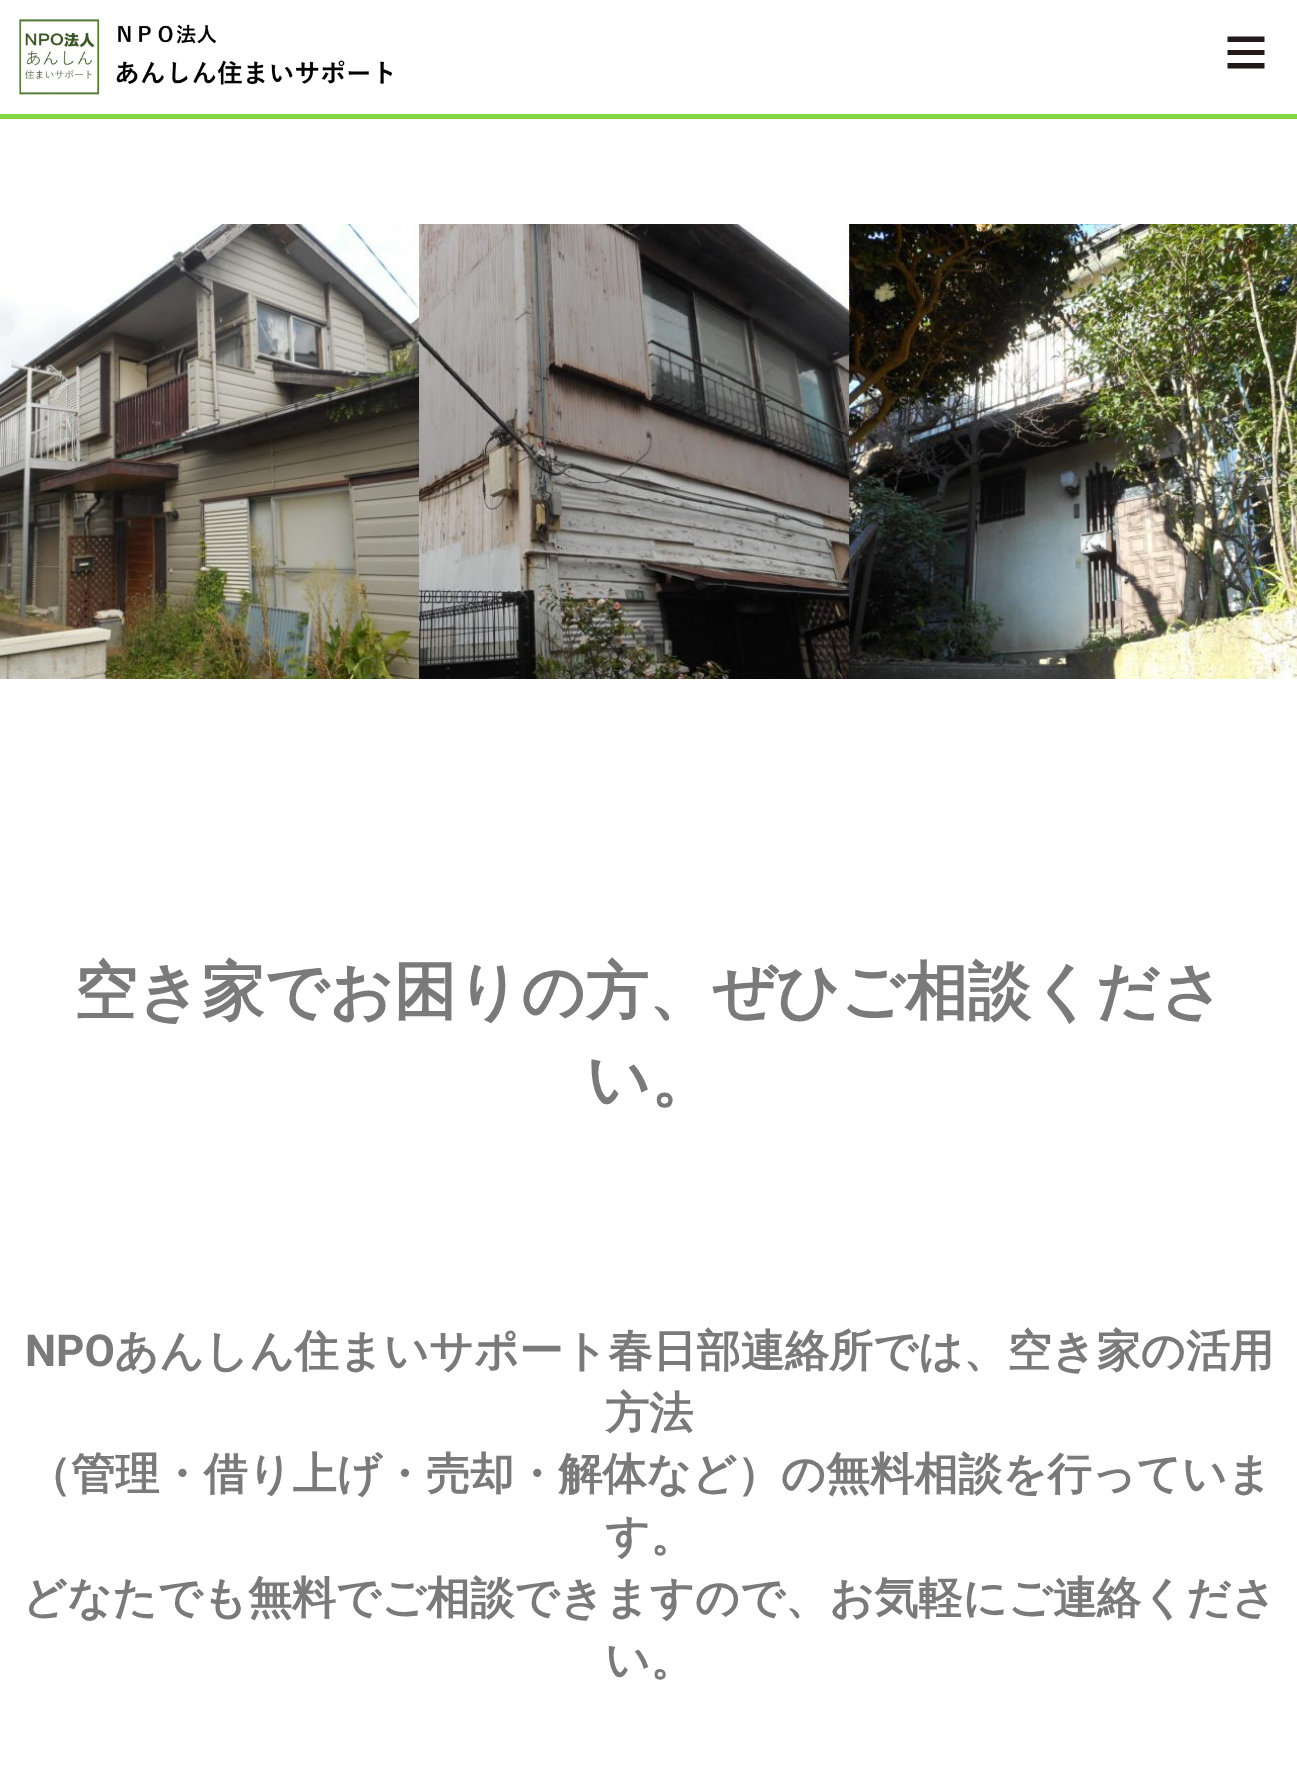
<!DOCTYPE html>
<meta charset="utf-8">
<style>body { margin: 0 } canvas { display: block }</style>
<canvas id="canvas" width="1297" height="1792"></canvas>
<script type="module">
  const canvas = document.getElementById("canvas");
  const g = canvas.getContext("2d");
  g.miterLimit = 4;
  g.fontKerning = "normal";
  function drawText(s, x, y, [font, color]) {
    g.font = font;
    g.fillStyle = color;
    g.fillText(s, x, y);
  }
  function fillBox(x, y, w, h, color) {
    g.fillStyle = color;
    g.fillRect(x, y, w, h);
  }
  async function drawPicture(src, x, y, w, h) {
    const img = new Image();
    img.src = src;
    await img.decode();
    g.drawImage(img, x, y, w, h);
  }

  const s1 = ["bold 63px WenQuanYi Zen Hei", "#7A7A7A"];
  const s2 = ["bold 44.1px Roboto", "#7A7A7A"];
  const s3 = ["bold 44.1px WenQuanYi Zen Hei", "#7A7A7A"];

  fillBox(0, 0, 1297, 1792, "#FFFFFF");
  fillBox(0, 114, 1297, 5, "#81D742");
  await drawPicture("pic1.png", 19, 19, 374, 76);
  g.fillStyle = "#231919";
  g.beginPath();
  g.moveTo(1227.5, 55);
  g.lineTo(1264.5, 55);
  g.lineTo(1264.5, 50);
  g.lineTo(1227.5, 50);
  g.closePath();
  g.moveTo(1227.5, 68.5);
  g.lineTo(1264.5, 68.5);
  g.lineTo(1264.5, 63);
  g.lineTo(1227.5, 63);
  g.closePath();
  g.moveTo(1227.5, 36.5);
  g.lineTo(1227.5, 42);
  g.lineTo(1264.5, 42);
  g.lineTo(1264.5, 36.5);
  g.closePath();
  g.fill();
  await drawPicture("pic2.png", 0, 224, 1297, 455);
  drawText("空き家でお困りの方、ぜひご相談くださ", 74, 1013, s1);
  drawText("い。", 586, 1101, s1);
  drawText("NPO", 25, 1366, s2);
  drawText("あんしん住まいサポート春日部連絡所では、空き家の活用", 114, 1366, s3);
  drawText("方法", 605, 1428, s3);
  drawText("（管理・借り上げ・売却・解体など）の無料相談を行っていま", 27, 1489, s3);
  drawText("す。", 605, 1551, s3);
  drawText("どなたでも無料でご相談できますので、お気軽にご連絡くださ", 22, 1613, s3);
  drawText("い。", 605, 1675, s3);
</script>
